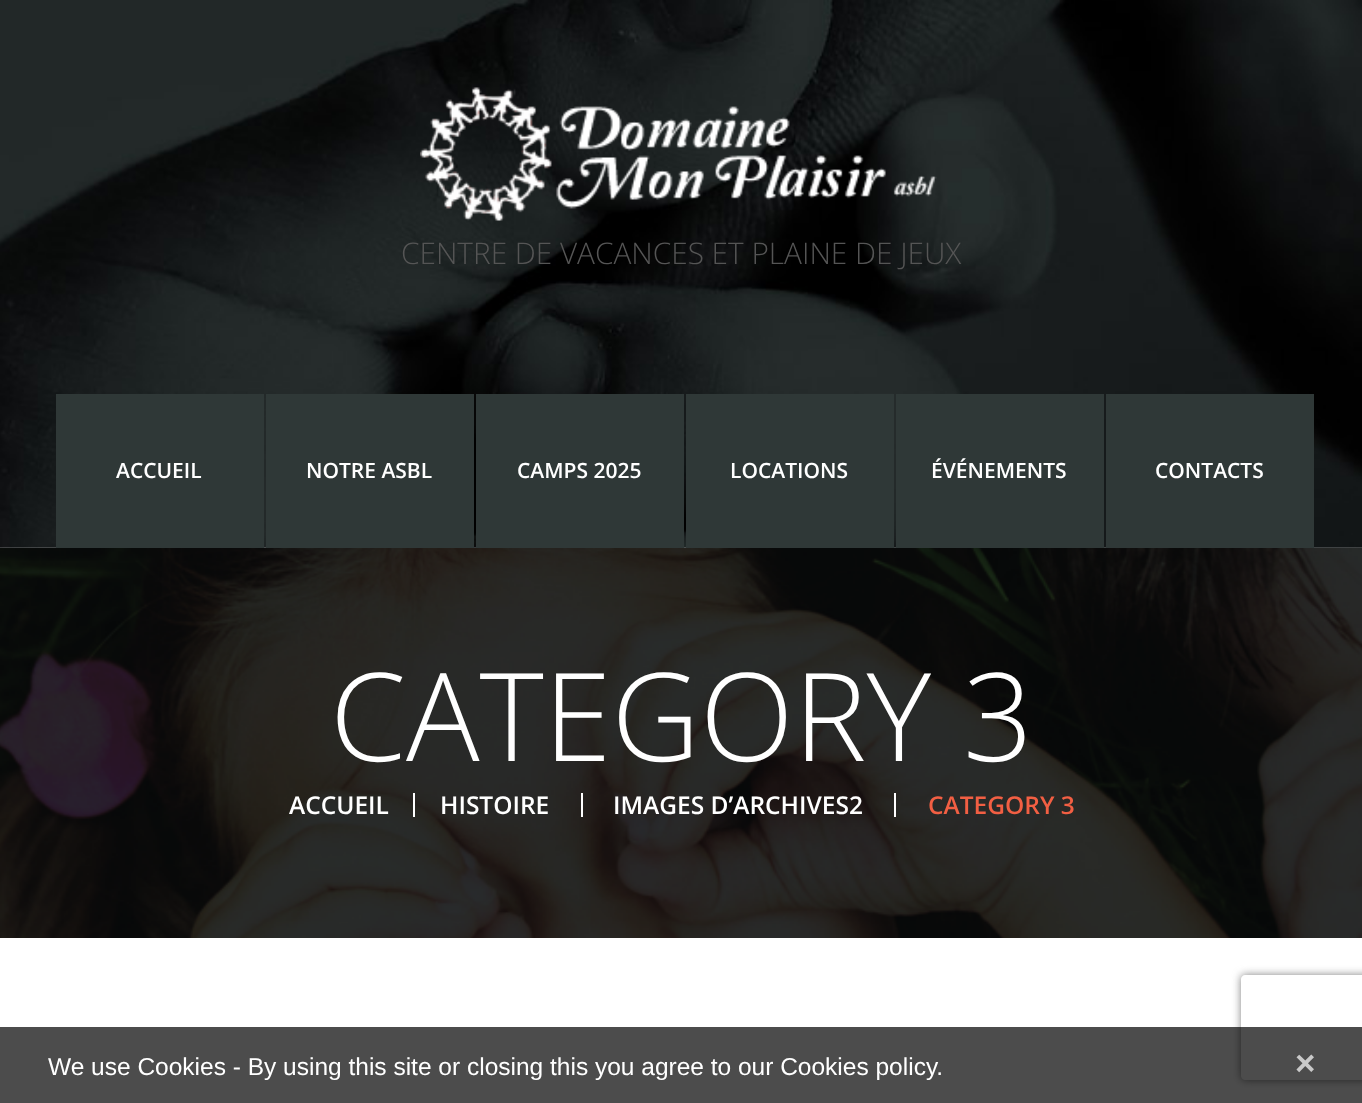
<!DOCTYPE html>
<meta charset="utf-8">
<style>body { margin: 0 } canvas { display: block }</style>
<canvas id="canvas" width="1362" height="1103"></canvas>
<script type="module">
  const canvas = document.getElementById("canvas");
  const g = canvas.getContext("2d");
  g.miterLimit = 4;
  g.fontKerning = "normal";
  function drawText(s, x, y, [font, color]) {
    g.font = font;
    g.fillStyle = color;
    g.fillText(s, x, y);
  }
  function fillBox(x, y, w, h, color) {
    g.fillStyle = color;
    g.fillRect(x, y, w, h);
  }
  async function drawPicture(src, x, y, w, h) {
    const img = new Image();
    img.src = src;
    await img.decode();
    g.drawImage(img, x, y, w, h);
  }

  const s1 = ["300 29.75px Open Sans", "#555555"];
  const s2 = ["600 21px Open Sans", "#FFFFFF"];
  const s3 = ["300 122.5px Open Sans", "#FFFFFF"];
  const s4 = ["600 24.5px Open Sans", "#FFFFFF"];
  const s5 = ["600 24.5px Open Sans", "#F25F43"];
  const s6 = ["24.5px Liberation Sans", "#FFFFFF"];
  const s7 = ["bold 35px Liberation Sans", "#C9C9C9"];

  fillBox(0, 0, 1362, 1103, "#FFFFFF");
  await drawPicture("pic3.png", 0, 547, 1362, 391);
  await drawPicture("pic1.png", 0, 0, 1362, 548);
  await drawPicture("pic2.png", 420, 87, 517, 134);
  drawText("CENTRE DE VACANCES ET PLAINE DE JEUX", 401, 264, s1);
  fillBox(56, 394, 208, 154, "#2F3837");
  drawText("ACCUEIL", 116, 478, s2);
  fillBox(266, 394, 208, 154, "#2F3837");
  drawText("NOTRE ASBL", 306, 478, s2);
  fillBox(476, 394, 208, 154, "#2F3837");
  drawText("CAMPS 2025", 517, 478, s2);
  fillBox(686, 394, 208, 154, "#2F3837");
  drawText("LOCATIONS", 730, 478, s2);
  fillBox(896, 394, 208, 154, "#2F3837");
  drawText("ÉVÉNEMENTS", 931, 478, s2);
  fillBox(1106, 394, 208, 154, "#2F3837");
  drawText("CONTACTS", 1155, 478, s2);
  drawText("CATEGORY 3", 330, 761, s3);
  drawText("ACCUEIL", 289, 814, s4);
  fillBox(413, 793, 2, 24, "#FFFFFF");
  drawText("HISTOIRE", 440, 814, s4);
  fillBox(581, 793, 2, 24, "#FFFFFF");
  drawText("IMAGES D’ARCHIVES2", 613, 814, s4);
  fillBox(894, 793, 2, 24, "#FFFFFF");
  drawText("CATEGORY 3", 928, 814, s5);
  g.save();
  g.beginPath();
  g.moveTo(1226, 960);
  g.lineTo(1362, 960);
  g.lineTo(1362, 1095);
  g.lineTo(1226, 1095);
  g.closePath();
  g.moveTo(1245, 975);
  g.lineTo(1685, 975);
  g.bezierCurveTo(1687, 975, 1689, 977, 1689, 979);
  g.lineTo(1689, 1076);
  g.bezierCurveTo(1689, 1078, 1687, 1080, 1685, 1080);
  g.lineTo(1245, 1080);
  g.bezierCurveTo(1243, 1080, 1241, 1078, 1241, 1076);
  g.lineTo(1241, 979);
  g.bezierCurveTo(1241, 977, 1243, 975, 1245, 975);
  g.closePath();
  g.clip("evenodd");
  g.fillStyle = "#808080";
  g.filter = "blur(4.5px)";
  g.beginPath();
  g.roundRect(1241, 975, 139, 105, 4);
  g.fill();
  g.filter = "none";
  g.restore();
  fillBox(0, 1027, 1362, 76, "rgba(0, 0, 0, 0.7)");
  drawText("We use Cookies - By using this site or closing this you agree to our Cookies policy.", 48, 1075, s6);
  drawText("×", 1295, 1075, s7);
</script>
